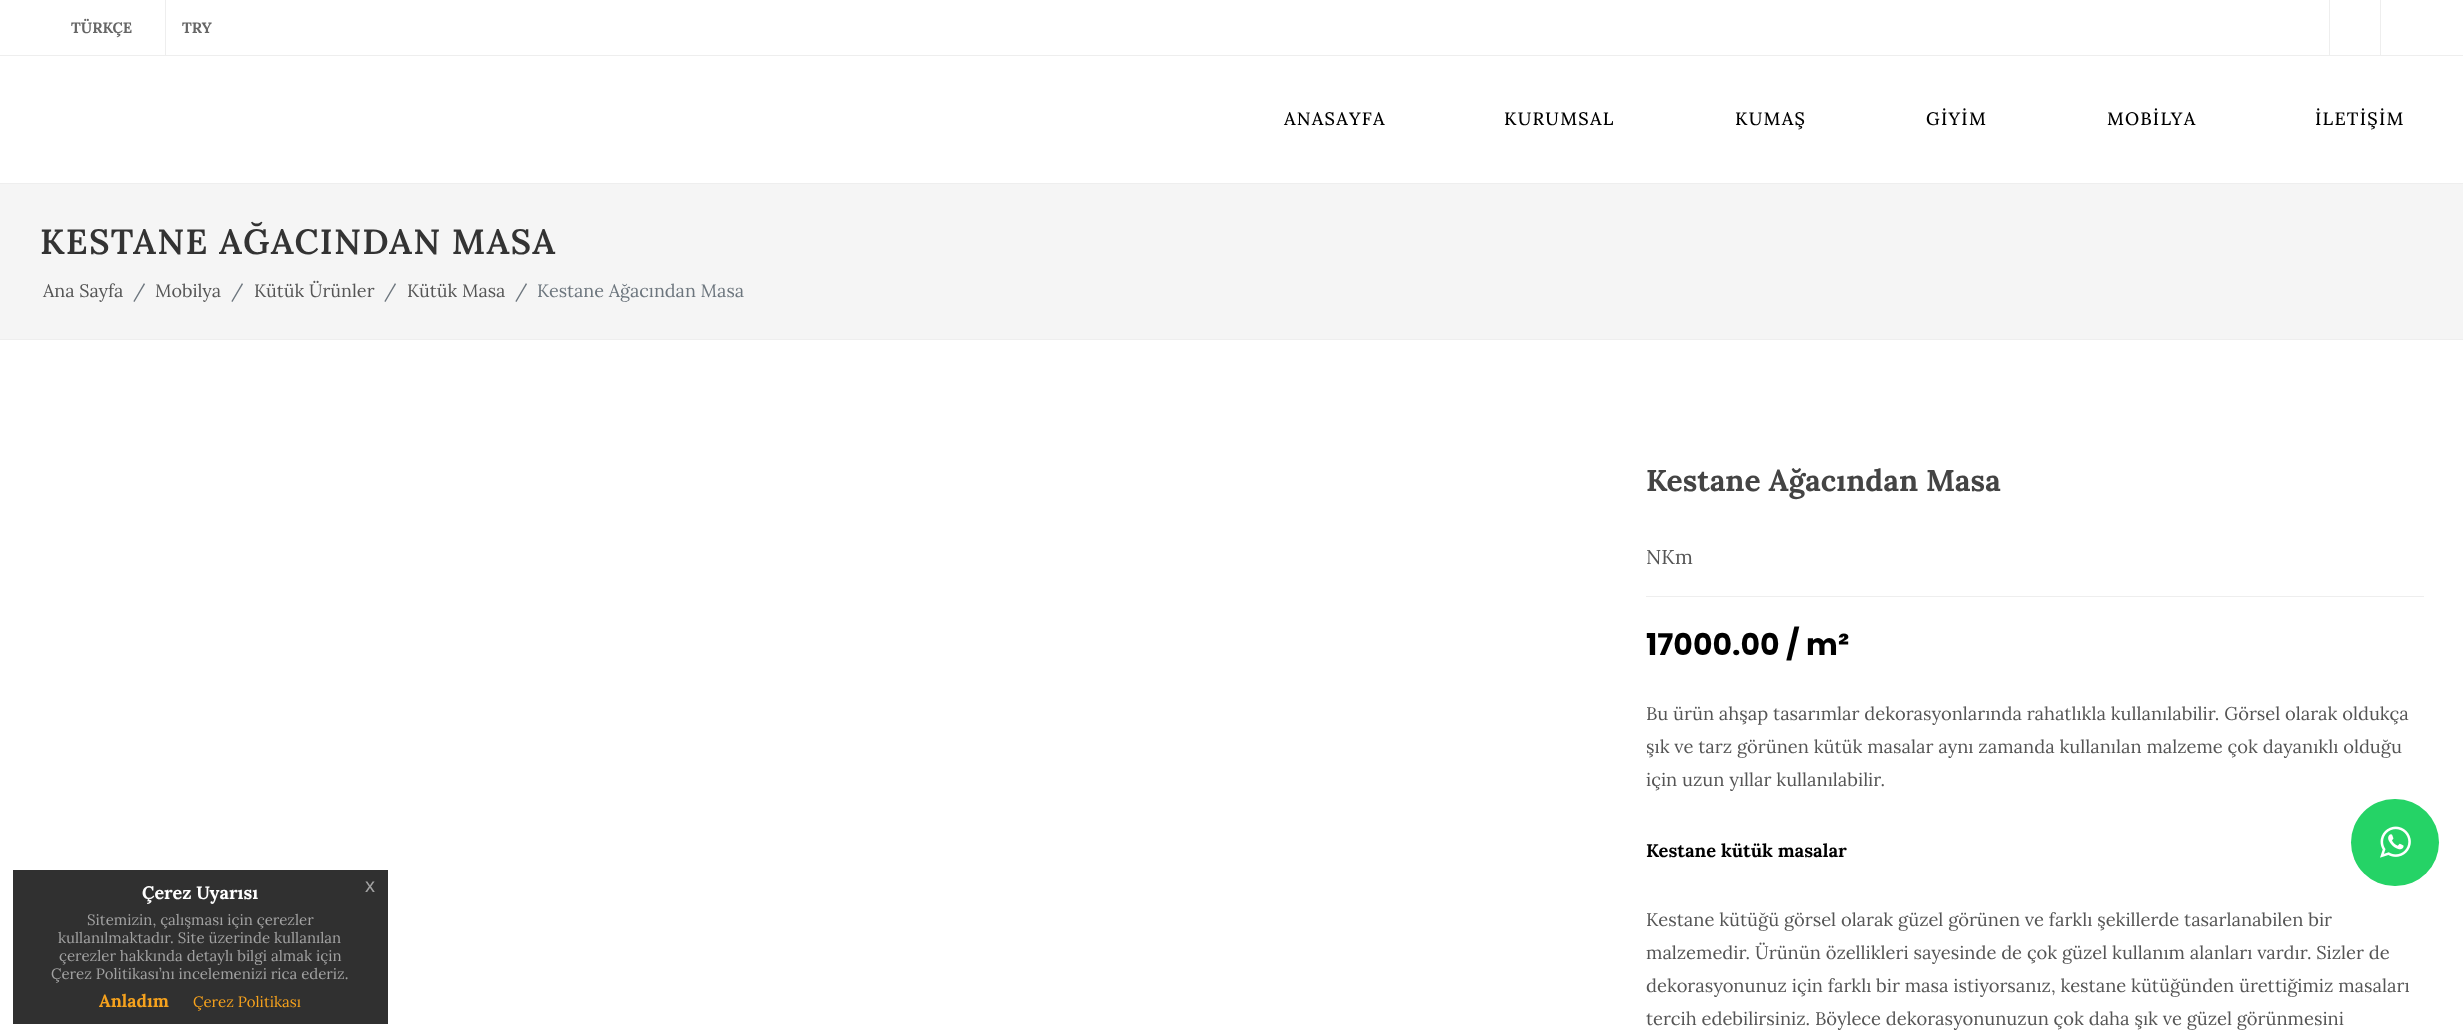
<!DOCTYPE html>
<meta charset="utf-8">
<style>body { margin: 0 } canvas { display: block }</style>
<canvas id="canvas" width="2463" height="1036"></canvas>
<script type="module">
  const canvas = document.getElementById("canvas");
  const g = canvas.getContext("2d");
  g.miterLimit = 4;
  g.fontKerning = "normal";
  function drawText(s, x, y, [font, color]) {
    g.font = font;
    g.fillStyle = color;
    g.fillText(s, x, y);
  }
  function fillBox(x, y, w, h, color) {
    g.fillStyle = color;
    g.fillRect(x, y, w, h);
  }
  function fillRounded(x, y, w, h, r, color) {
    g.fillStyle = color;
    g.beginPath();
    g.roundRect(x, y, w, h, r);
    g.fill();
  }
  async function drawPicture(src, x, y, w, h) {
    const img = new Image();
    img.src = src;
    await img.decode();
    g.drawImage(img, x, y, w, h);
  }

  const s1 = ["bold 15px Lora", "#666666"];
  const s2 = ["500 18px Lora", "#000000"];
  const s3 = ["600 35px Lora", "#333333"];
  const s4 = ["18px Lora", "#555555"];
  const s5 = ["18px Lora", "#6C757D"];
  const s6 = ["bold 30px Lora", "#444444"];
  const s7 = ["20px Lora", "#555555"];
  const s8 = ["bold 30px Poppins", "#000000"];
  const s9 = ["18.35px Lora", "#555555"];
  const s10 = ["bold 18.35px Lora", "#000000"];
  const s11 = ["bold 18px Lora", "#FFFFFF"];
  const s12 = ["20px Liberation Sans", "#A2A2A2"];
  const s13 = ["15px Lora", "#A2A2A2"];
  const s14 = ["bold 17.5px Lora", "#F6A21D"];
  const s15 = ["15px Lora", "#F6A21D"];

  fillBox(0, 0, 2463, 1036, "#FFFFFF");
  fillBox(0, 55, 2463, 1, "#EEEEEE");
  drawText("TÜRKÇE", 71, 33, s1);
  fillBox(165, 0, 1, 55, "#EEEEEE");
  drawText("TRY", 182, 33, s1);
  fillBox(2329, 0, 1, 55, "#EEEEEE");
  fillBox(2380, 0, 1, 55, "#EEEEEE");
  fillBox(0, 183, 2463, 1, "#EEEEEE");
  g.letterSpacing = "1.25px";
  drawText("ANASAYFA", 1284, 125, s2);
  drawText("KURUMSAL", 1504, 125, s2);
  drawText("KUMAŞ", 1735, 125, s2);
  drawText("GİYİM", 1926, 125, s2);
  drawText("MOBİLYA", 2107, 125, s2);
  drawText("İLETİŞİM", 2315, 125, s2);
  fillBox(0, 184, 2463, 155, "#F5F5F5");
  fillBox(0, 339, 2463, 1, "#EEEEEE");
  drawText("KESTANE AĞACINDAN MASA", 40, 254, s3);
  g.letterSpacing = "0px";
  drawText("Ana Sayfa", 43, 297, s4);
  drawText("/", 133, 297, s5);
  drawText("Mobilya", 155, 297, s4);
  drawText("/", 231, 297, s5);
  drawText("Kütük Ürünler", 254, 297, s4);
  drawText("/", 384, 297, s5);
  drawText("Kütük Masa", 407, 297, s4);
  drawText("/", 515, 297, s5);
  drawText("Kestane Ağacından Masa", 537, 297, s5);
  drawText("Kestane Ağacından Masa", 1646, 491, s6);
  drawText("NKm", 1646, 564, s7);
  fillBox(1646, 596, 778, 1, "#EEEEEE");
  drawText("17000.00 / m²", 1646, 655, s8);
  drawText("Bu ürün ahşap tasarımlar dekorasyonlarında rahatlıkla kullanılabilir. Görsel olarak oldukça", 1646, 720, s9);
  drawText("şık ve tarz görünen kütük masalar aynı zamanda kullanılan malzeme çok dayanıklı olduğu", 1646, 753, s9);
  drawText("için uzun yıllar kullanılabilir.", 1646, 786, s9);
  drawText("Kestane kütük masalar", 1646, 857, s10);
  drawText("Kestane kütüğü görsel olarak güzel görünen ve farklı şekillerde tasarlanabilen bir", 1646, 926, s9);
  drawText("malzemedir. Ürünün özellikleri sayesinde de çok güzel kullanım alanları vardır. Sizler de", 1646, 959, s9);
  drawText("dekorasyonunuz için farklı bir masa istiyorsanız, kestane kütüğünden ürettiğimiz masaları", 1646, 992, s9);
  drawText("tercih edebilirsiniz. Böylece dekorasyonunuzun çok daha şık ve güzel görünmesini", 1646, 1025, s9);
  fillRounded(2351, 799, 88, 87, 43.5, "#25D366");
  await drawPicture("pic1.png", 2380, 826, 31, 32);
  fillBox(13, 870, 375, 154, "#303030");
  drawText("Çerez Uyarısı", 142, 899, s11);
  drawText("x", 365, 892, s12);
  drawText("Sitemizin, çalışması için çerezler", 87, 925, s13);
  drawText("kullanılmaktadır. Site üzerinde kullanılan", 58, 943, s13);
  drawText("çerezler hakkında detaylı bilgi almak için", 59, 961, s13);
  drawText("Çerez Politikası’nı incelemenizi rica ederiz.", 51, 979, s13);
  drawText("Anladım", 99, 1007, s14);
  drawText("Çerez Politikası", 193, 1007, s15);
</script>
